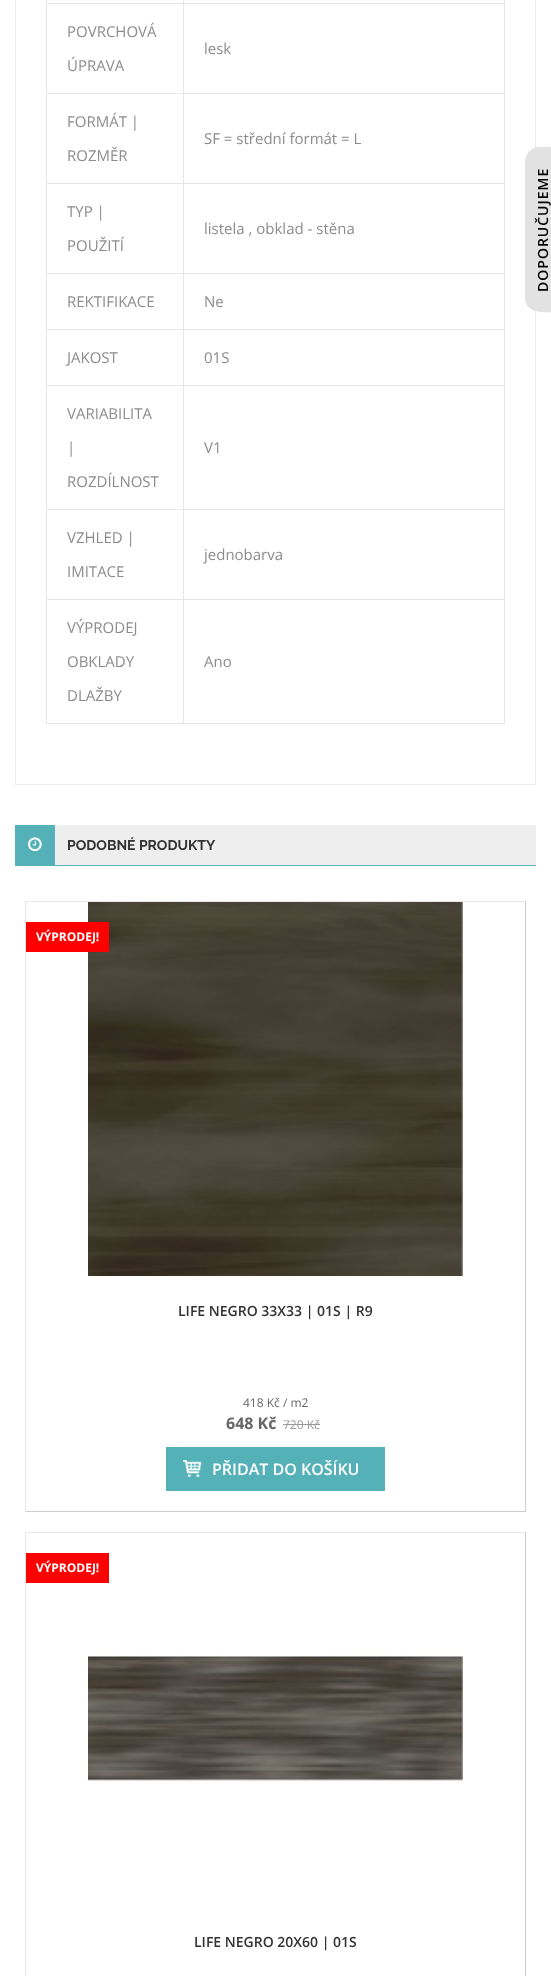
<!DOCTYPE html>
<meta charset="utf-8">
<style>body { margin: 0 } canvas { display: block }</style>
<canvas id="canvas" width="551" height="1976"></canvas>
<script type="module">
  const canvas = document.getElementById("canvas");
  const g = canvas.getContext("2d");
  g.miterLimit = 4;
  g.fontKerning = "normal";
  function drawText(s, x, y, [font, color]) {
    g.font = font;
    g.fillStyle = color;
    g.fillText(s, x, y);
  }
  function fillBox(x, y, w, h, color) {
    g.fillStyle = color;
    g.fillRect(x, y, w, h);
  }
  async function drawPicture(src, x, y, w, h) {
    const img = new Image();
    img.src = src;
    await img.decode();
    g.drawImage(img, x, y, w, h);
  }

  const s1 = ["15px Open Sans", "#8C8C8C"];
  const s2 = ["bold 14px Raleway", "#333333"];
  const s3 = ["bold 12px Open Sans", "#FFFFFF"];
  const s4 = ["600 14px Open Sans", "#333333"];
  const s5 = ["12px Open Sans", "#666666"];
  const s6 = ["bold 16px Open Sans", "#666666"];
  const s7 = ["12px Open Sans", "#999999"];
  const s8 = ["600 16px Open Sans", "#FFFFFF"];

  fillBox(0, 0, 551, 1976, "#FFFFFF");
  g.strokeStyle = "#EBEBEB";
  g.strokeRect(15.5, -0.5, 520, 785);
  fillBox(183, 3, 322, 1, "#E6E6E6");
  fillBox(183, 93, 322, 1, "#E6E6E6");
  fillBox(183, 183, 322, 1, "#E6E6E6");
  fillBox(183, 273, 322, 1, "#E6E6E6");
  fillBox(183, 329, 322, 1, "#E6E6E6");
  fillBox(183, 385, 322, 1, "#E6E6E6");
  fillBox(183, 509, 322, 1, "#E6E6E6");
  fillBox(183, 599, 322, 1, "#E6E6E6");
  fillBox(504, 599, 1, 125, "#E6E6E6");
  fillBox(183, 723, 322, 1, "#E6E6E6");
  fillBox(183, 599, 1, 125, "#E6E6E6");
  fillBox(46, 599, 138, 1, "#E6E6E6");
  fillBox(183, 509, 1, 91, "#E6E6E6");
  fillBox(46, 509, 138, 1, "#E6E6E6");
  fillBox(183, 385, 1, 125, "#E6E6E6");
  fillBox(46, 385, 138, 1, "#E6E6E6");
  fillBox(183, 329, 1, 57, "#E6E6E6");
  fillBox(46, 329, 138, 1, "#E6E6E6");
  fillBox(183, 273, 1, 57, "#E6E6E6");
  fillBox(46, 273, 138, 1, "#E6E6E6");
  fillBox(183, 183, 1, 91, "#E6E6E6");
  fillBox(46, 183, 138, 1, "#E6E6E6");
  fillBox(183, 93, 1, 91, "#E6E6E6");
  fillBox(46, 93, 138, 1, "#E6E6E6");
  fillBox(183, 3, 1, 91, "#E6E6E6");
  fillBox(46, 3, 138, 1, "#E6E6E6");
  fillBox(183, 0, 1, 4, "#E6E6E6");
  fillBox(46, 723, 138, 1, "#E6E6E6");
  fillBox(46, 599, 1, 125, "#E6E6E6");
  fillBox(46, 509, 1, 91, "#E6E6E6");
  fillBox(46, 385, 1, 125, "#E6E6E6");
  fillBox(46, 329, 1, 57, "#E6E6E6");
  fillBox(46, 273, 1, 57, "#E6E6E6");
  fillBox(46, 183, 1, 91, "#E6E6E6");
  fillBox(46, 93, 1, 91, "#E6E6E6");
  fillBox(46, 0, 1, 94, "#E6E6E6");
  drawText("POVRCHOVÁ", 67, 37, s1);
  drawText("ÚPRAVA", 67, 71, s1);
  fillBox(504, 509, 1, 91, "#E6E6E6");
  fillBox(504, 385, 1, 125, "#E6E6E6");
  fillBox(504, 329, 1, 57, "#E6E6E6");
  fillBox(504, 273, 1, 57, "#E6E6E6");
  fillBox(504, 183, 1, 91, "#E6E6E6");
  fillBox(504, 93, 1, 91, "#E6E6E6");
  fillBox(504, 0, 1, 94, "#E6E6E6");
  drawText("lesk", 204, 54, s1);
  drawText("FORMÁT |", 67, 127, s1);
  drawText("ROZMĚR", 67, 161, s1);
  drawText("SF = střední formát = L", 204, 144, s1);
  drawText("TYP |", 67, 217, s1);
  drawText("POUŽITÍ", 67, 251, s1);
  drawText("listela , obklad - stěna", 204, 234, s1);
  drawText("REKTIFIKACE", 67, 307, s1);
  drawText("Ne", 204, 307, s1);
  drawText("JAKOST", 67, 363, s1);
  drawText("01S", 204, 363, s1);
  drawText("VARIABILITA", 67, 419, s1);
  drawText("|", 67, 453, s1);
  drawText("ROZDÍLNOST", 67, 487, s1);
  drawText("V1", 204, 453, s1);
  drawText("VZHLED |", 67, 543, s1);
  drawText("IMITACE", 67, 577, s1);
  drawText("jednobarva", 204, 560, s1);
  drawText("VÝPRODEJ", 67, 633, s1);
  drawText("OBKLADY", 67, 667, s1);
  drawText("DLAŽBY", 67, 701, s1);
  drawText("Ano", 204, 667, s1);
  fillBox(55, 825, 481, 40, "#EEEEEE");
  fillBox(15, 865, 521, 1, "#53B1B7");
  fillBox(15, 825, 40, 40, "#53B1B7");
  await drawPicture("pic1.png", 28, 837, 14, 15);
  drawText("PODOBNÉ PRODUKTY", 67, 850, s2);
  fillBox(25, 901, 501, 1, "#E8E8E8");
  fillBox(525, 901, 1, 611, "#CCCCCC");
  fillBox(25, 1511, 501, 1, "#CCCCCC");
  fillBox(25, 901, 1, 611, "#E8E8E8");
  await drawPicture("pic2.png", 88, 902, 375, 374);
  fillBox(26, 922, 83, 30, "#FF0000");
  drawText("VÝPRODEJ!", 36, 941, s3);
  drawText("LIFE NEGRO 33X33 | 01S | R9", 178, 1316, s4);
  drawText("418 Kč / m2", 243, 1407, s5);
  drawText("648 Kč", 226, 1429, s6);
  drawText("720 Kč", 283, 1429, s7);
  fillBox(283, 1424, 37, 1, "#999999");
  fillBox(166, 1447, 219, 44, "#53B1B7");
  await drawPicture("pic3.png", 183, 1460, 19, 18);
  drawText("PŘIDAT DO KOŠÍKU", 212, 1475, s8);
  fillBox(25, 1532, 501, 1, "#E8E8E8");
  fillBox(525, 1532, 1, 444, "#CCCCCC");
  fillBox(25, 1532, 1, 444, "#E8E8E8");
  fillBox(26, 1553, 83, 30, "#FF0000");
  drawText("VÝPRODEJ!", 36, 1572, s3);
  await drawPicture("pic4.png", 88, 1654, 375, 128);
  drawText("LIFE NEGRO 20X60 | 01S", 194, 1947, s4);
  g.fillStyle = "#E2E2E2";
  g.beginPath();
  g.moveTo(525, 297);
  g.lineTo(525, 162);
  g.bezierCurveTo(525, 154, 531, 147, 540, 147);
  g.lineTo(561, 147);
  g.lineTo(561, 312);
  g.bezierCurveTo(548, 312, 525, 316, 525, 297);
  g.closePath();
  g.fill();
  g.letterSpacing = "1px";
  g.fillStyle = "#000000";
  g.save();
  g.translate(548, 292);
  g.rotate(-90 * Math.PI / 180);
  g.fillText("DOPORUČUJEME", 0, 0);
  g.restore();
</script>
